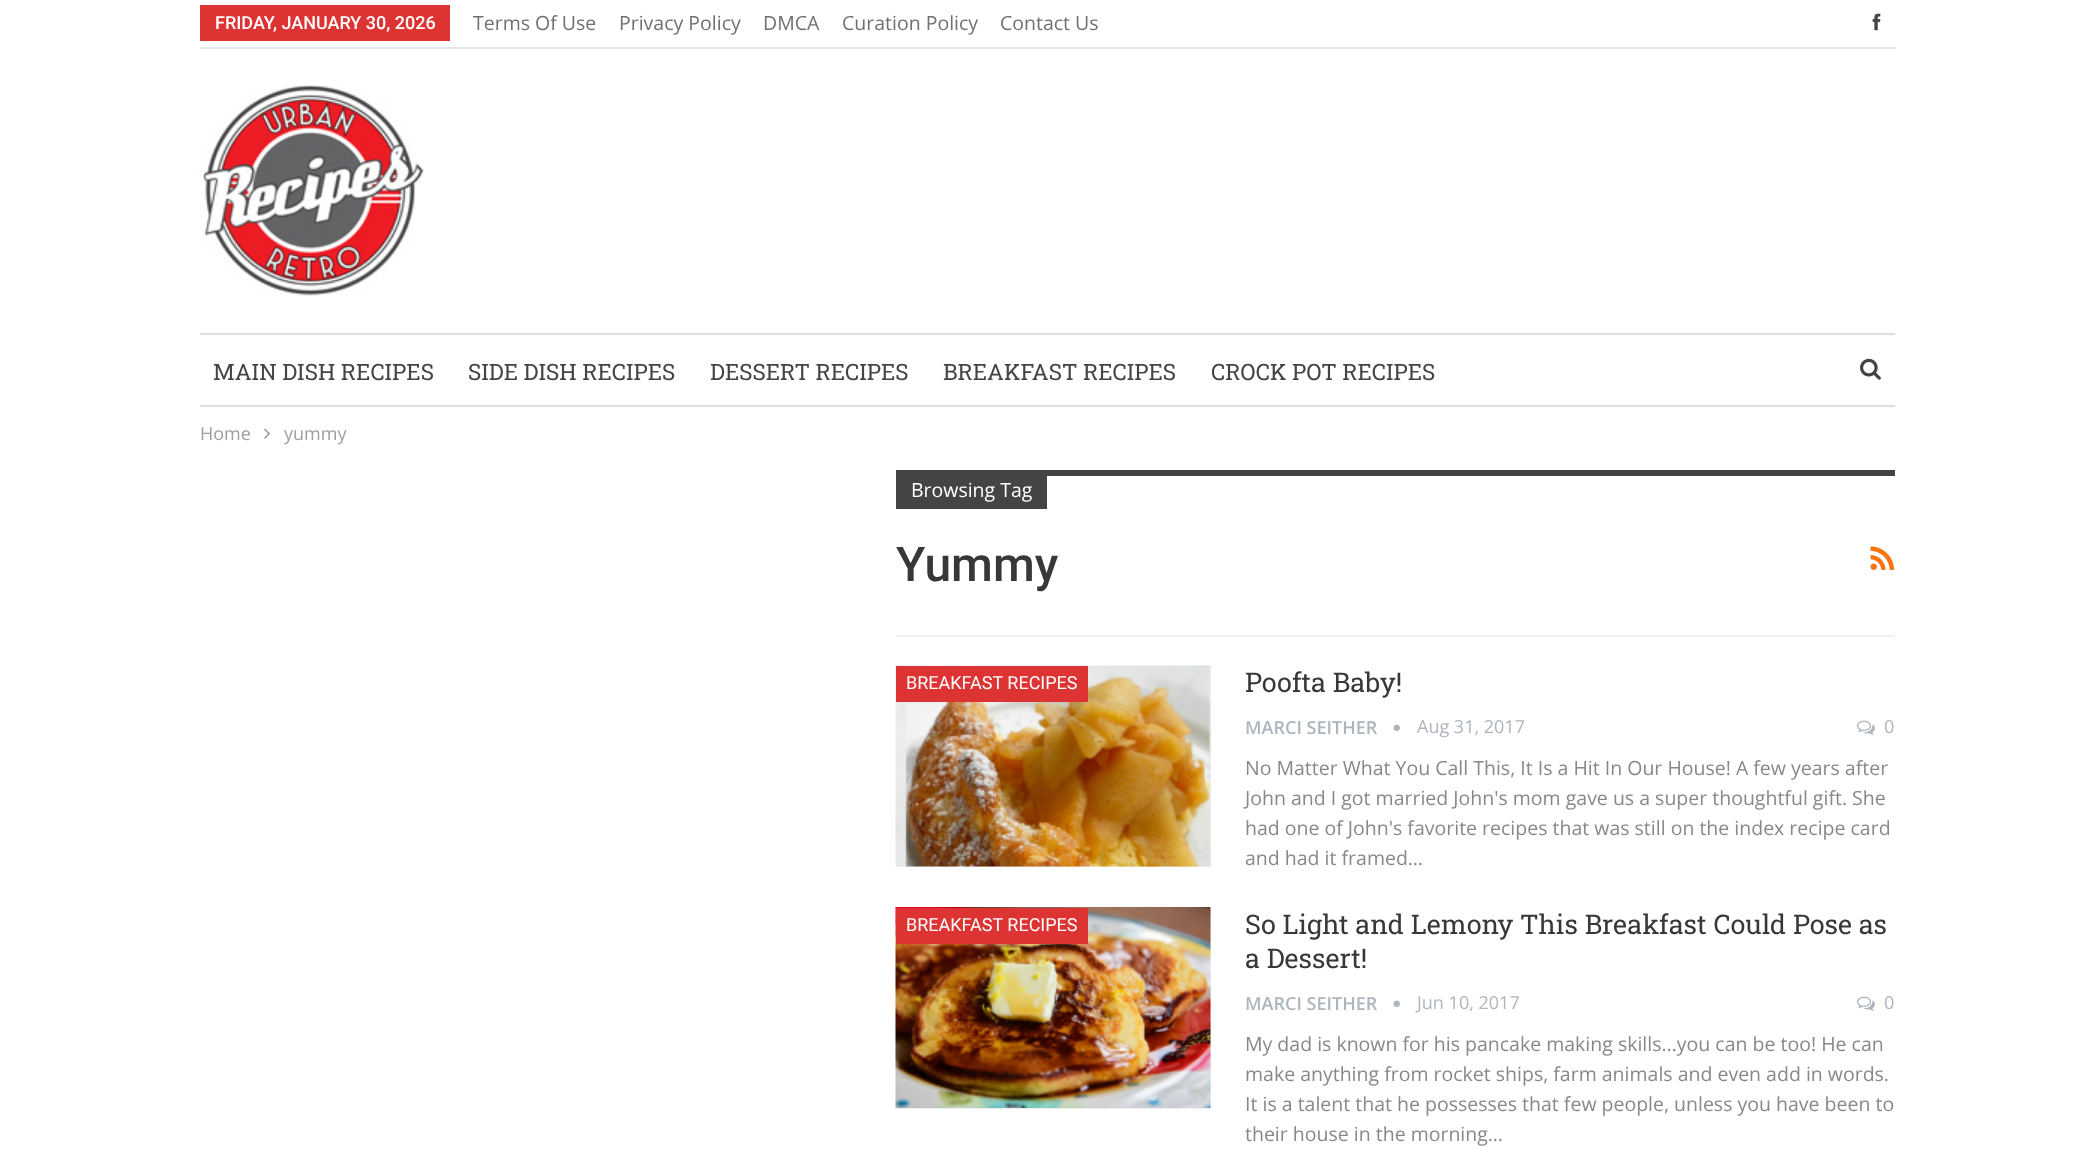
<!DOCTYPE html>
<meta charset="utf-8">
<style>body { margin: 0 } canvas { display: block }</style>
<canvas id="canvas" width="2093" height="1153"></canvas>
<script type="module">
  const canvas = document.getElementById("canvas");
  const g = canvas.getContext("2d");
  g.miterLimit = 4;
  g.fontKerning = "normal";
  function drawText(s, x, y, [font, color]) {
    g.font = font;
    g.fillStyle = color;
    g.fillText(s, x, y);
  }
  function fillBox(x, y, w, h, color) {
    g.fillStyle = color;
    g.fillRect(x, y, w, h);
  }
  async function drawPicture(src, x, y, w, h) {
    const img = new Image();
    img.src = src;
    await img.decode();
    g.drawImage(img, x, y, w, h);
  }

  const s1 = ["500 18px Roboto", "#FFFFFF"];
  const s2 = ["19.5px Open Sans", "#707070"];
  const s3 = ["22.5px Roboto Slab", "#444444"];
  const s4 = ["18px Open Sans", "#9E9E9E"];
  const s5 = ["19.5px Open Sans", "#FFFFFF"];
  const s6 = ["500 48px Roboto", "#383838"];
  const s7 = ["18px Roboto", "#FFFFFF"];
  const s8 = ["27px Roboto Slab", "#383838"];
  const s9 = ["600 18px Open Sans", "#ADB5BD"];
  const s10 = ["18px Open Sans", "#ADB5BD"];
  const s11 = ["19.5px Open Sans", "#888888"];

  fillBox(0, 0, 2093, 1153, "#FFFFFF");
  fillBox(200, 47, 1695, 2, "#E6E6E6");
  fillBox(200, 5, 250, 36, "#DD3333");
  drawText("FRIDAY, JANUARY 30, 2026", 215, 29, s1);
  drawText("Terms Of Use", 473, 30, s2);
  drawText("Privacy Policy", 619, 30, s2);
  drawText("DMCA", 763, 30, s2);
  drawText("Curation Policy", 842, 30, s2);
  drawText("Contact Us", 1000, 30, s2);
  await drawPicture("pic1.png", 1872, 13, 9, 18);
  await drawPicture("pic2.png", 199, 85, 225, 211);
  fillBox(200, 333, 1695, 2, "#DEDEDE");
  fillBox(200, 405, 1695, 2, "#DEDEDE");
  drawText("MAIN DISH RECIPES", 213, 380, s3);
  drawText("SIDE DISH RECIPES", 468, 380, s3);
  drawText("DESSERT RECIPES", 710, 380, s3);
  drawText("BREAKFAST RECIPES", 943, 380, s3);
  drawText("CROCK POT RECIPES", 1211, 380, s3);
  await drawPicture("pic3.png", 1860, 358, 21, 22);
  drawText("Home", 200, 440, s4);
  await drawPicture("pic4.png", 264, 428, 6, 11);
  drawText("yummy", 284, 440, s4);
  fillBox(896, 635, 999, 2, "#F0F0F0");
  fillBox(1047, 470, 848, 6, "#444444");
  fillBox(896, 470, 151, 39, "#444444");
  drawText("Browsing Tag", 911, 497, s5);
  drawText("Yummy", 896, 581, s6);
  await drawPicture("pic5.png", 1870, 546, 25, 24);
  fillBox(896, 666, 315, 201, "#EEEEEE");
  await drawPicture("pic6.png", 895, 665, 316, 202);
  fillBox(896, 666, 192, 36, "#DD3333");
  drawText("BREAKFAST RECIPES", 906, 689, s7);
  drawText("Poofta Baby!", 1245, 692, s8);
  drawText("MARCI SEITHER", 1245, 734, s9);
  await drawPicture("pic7.png", 1393, 724, 7, 7);
  drawText("Aug 31, 2017", 1417, 733, s10);
  await drawPicture("pic8.png", 1857, 720, 18, 15);
  drawText("0", 1884, 733, s10);
  drawText("No Matter What You Call This, It Is a Hit In Our House! A few years after", 1245, 775, s11);
  drawText("John and I got married John's mom gave us a super thoughtful gift. She", 1245, 805, s11);
  drawText("had one of John's favorite recipes that was still on the index recipe card", 1245, 835, s11);
  drawText("and had it framed…", 1245, 865, s11);
  fillBox(896, 908, 315, 201, "#EEEEEE");
  await drawPicture("pic9.png", 895, 907, 316, 201);
  fillBox(896, 908, 192, 36, "#DD3333");
  drawText("BREAKFAST RECIPES", 906, 931, s7);
  drawText("So Light and Lemony This Breakfast Could Pose as", 1245, 934, s8);
  drawText("a Dessert!", 1245, 968, s8);
  drawText("MARCI SEITHER", 1245, 1010, s9);
  await drawPicture("pic7.png", 1393, 1000, 7, 7);
  drawText("Jun 10, 2017", 1417, 1009, s10);
  await drawPicture("pic8.png", 1857, 996, 18, 15);
  drawText("0", 1884, 1009, s10);
  drawText("My dad is known for his pancake making skills...you can be too! He can", 1245, 1051, s11);
  drawText("make anything from rocket ships, farm animals and even add in words.", 1245, 1081, s11);
  drawText("It is a talent that he possesses that few people, unless you have been to", 1245, 1111, s11);
  drawText("their house in the morning…", 1245, 1141, s11);
</script>
